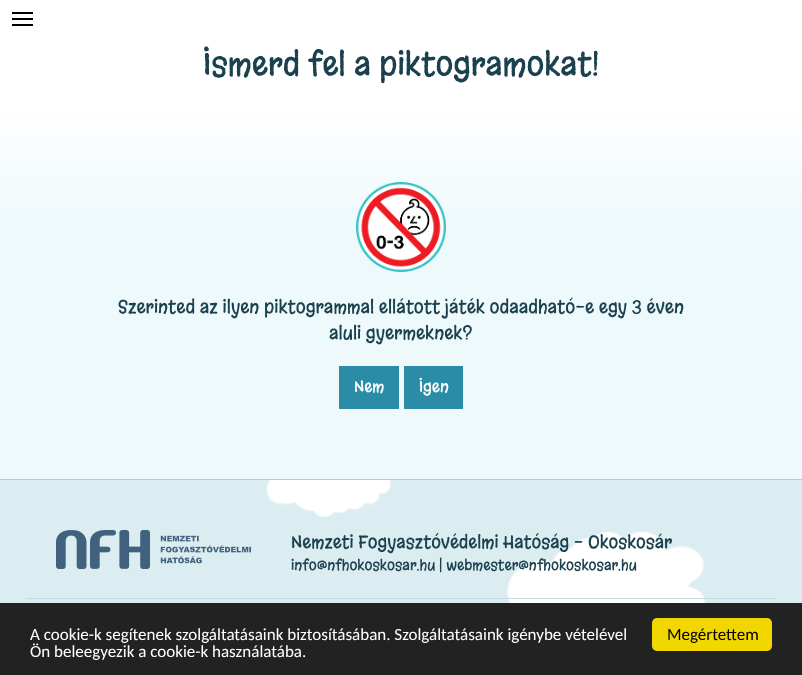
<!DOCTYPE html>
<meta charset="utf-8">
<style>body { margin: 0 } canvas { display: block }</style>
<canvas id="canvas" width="802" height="675"></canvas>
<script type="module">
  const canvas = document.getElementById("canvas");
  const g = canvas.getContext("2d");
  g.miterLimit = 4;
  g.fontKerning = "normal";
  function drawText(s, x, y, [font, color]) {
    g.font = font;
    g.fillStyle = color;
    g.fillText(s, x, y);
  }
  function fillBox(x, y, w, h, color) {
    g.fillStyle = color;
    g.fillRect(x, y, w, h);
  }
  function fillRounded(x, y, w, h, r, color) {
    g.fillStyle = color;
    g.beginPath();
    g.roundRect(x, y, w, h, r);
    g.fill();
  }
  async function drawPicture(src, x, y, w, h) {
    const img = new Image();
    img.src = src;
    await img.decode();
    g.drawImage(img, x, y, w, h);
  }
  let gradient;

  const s1 = ["32px Margarine", "#1B414F"];
  const s2 = ["18px Margarine", "#1B414F"];
  const s3 = ["16px Margarine", "#FFFFFF"];
  const s4 = ["17.6px Margarine", "#1B414F"];
  const s5 = ["14.4px Margarine", "#1B414F"];
  const s6 = ["17px Carlito", "#FFFFFF"];
  const s7 = ["17px Carlito", "#000000"];

  fillBox(0, 0, 802, 675, "#EEF9FC");
  gradient = g.createLinearGradient(401, -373, 401, 227);
  gradient.addColorStop(0.8, "#FFFFFF");
  gradient.addColorStop(1, "#EEF9FC");
  g.fillStyle = gradient;
  g.fillRect(0, 0, 802, 209);
  fillBox(12, 12, 21, 2, "#000000");
  fillBox(12, 18, 21, 2, "#000000");
  fillBox(12, 24, 21, 2, "#000000");
  drawText("Ismerd fel a piktogramokat!", 203, 75, s1);
  await drawPicture("pic1.png", 356, 182, 90, 90);
  drawText("Szerinted az ilyen piktogrammal ellátott játék odaadható-e egy 3 éven", 118, 313, s2);
  drawText("aluli gyermeknek?", 329, 339, s2);
  fillBox(339, 366, 60, 43, "#2A8CA7");
  drawText("Nem", 354, 392, s3);
  fillBox(404, 366, 59, 43, "#2A8CA7");
  drawText("Igen", 419, 392, s3);
  fillBox(0, 480, 802, 123, "#DCEDF1");
  await drawPicture("pic2.png", 266, 480, 440, 123);
  fillBox(0, 479, 802, 1, "#B8CAD1");
  await drawPicture("pic3.png", 56, 530, 195, 39);
  drawText("Nemzeti Fogyasztóvédelmi Hatóság - Okoskosár", 291, 548, s4);
  drawText("info@nfhokoskosar.hu | webmester@nfhokoskosar.hu", 291, 570, s5);
  fillBox(26, 598, 750, 1, "#C7DADF");
  fillBox(0, 603, 802, 72, "#222222");
  drawText("A cookie-k segítenek szolgáltatásaink biztosításában. Szolgáltatásaink igénybe vételével", 30, 640, s6);
  drawText("Ön beleegyezik a cookie-k használatába.", 30, 657, s6);
  fillRounded(652, 618, 120, 33, 5, "#F1D600");
  drawText("Megértettem", 667, 640, s7);
</script>
